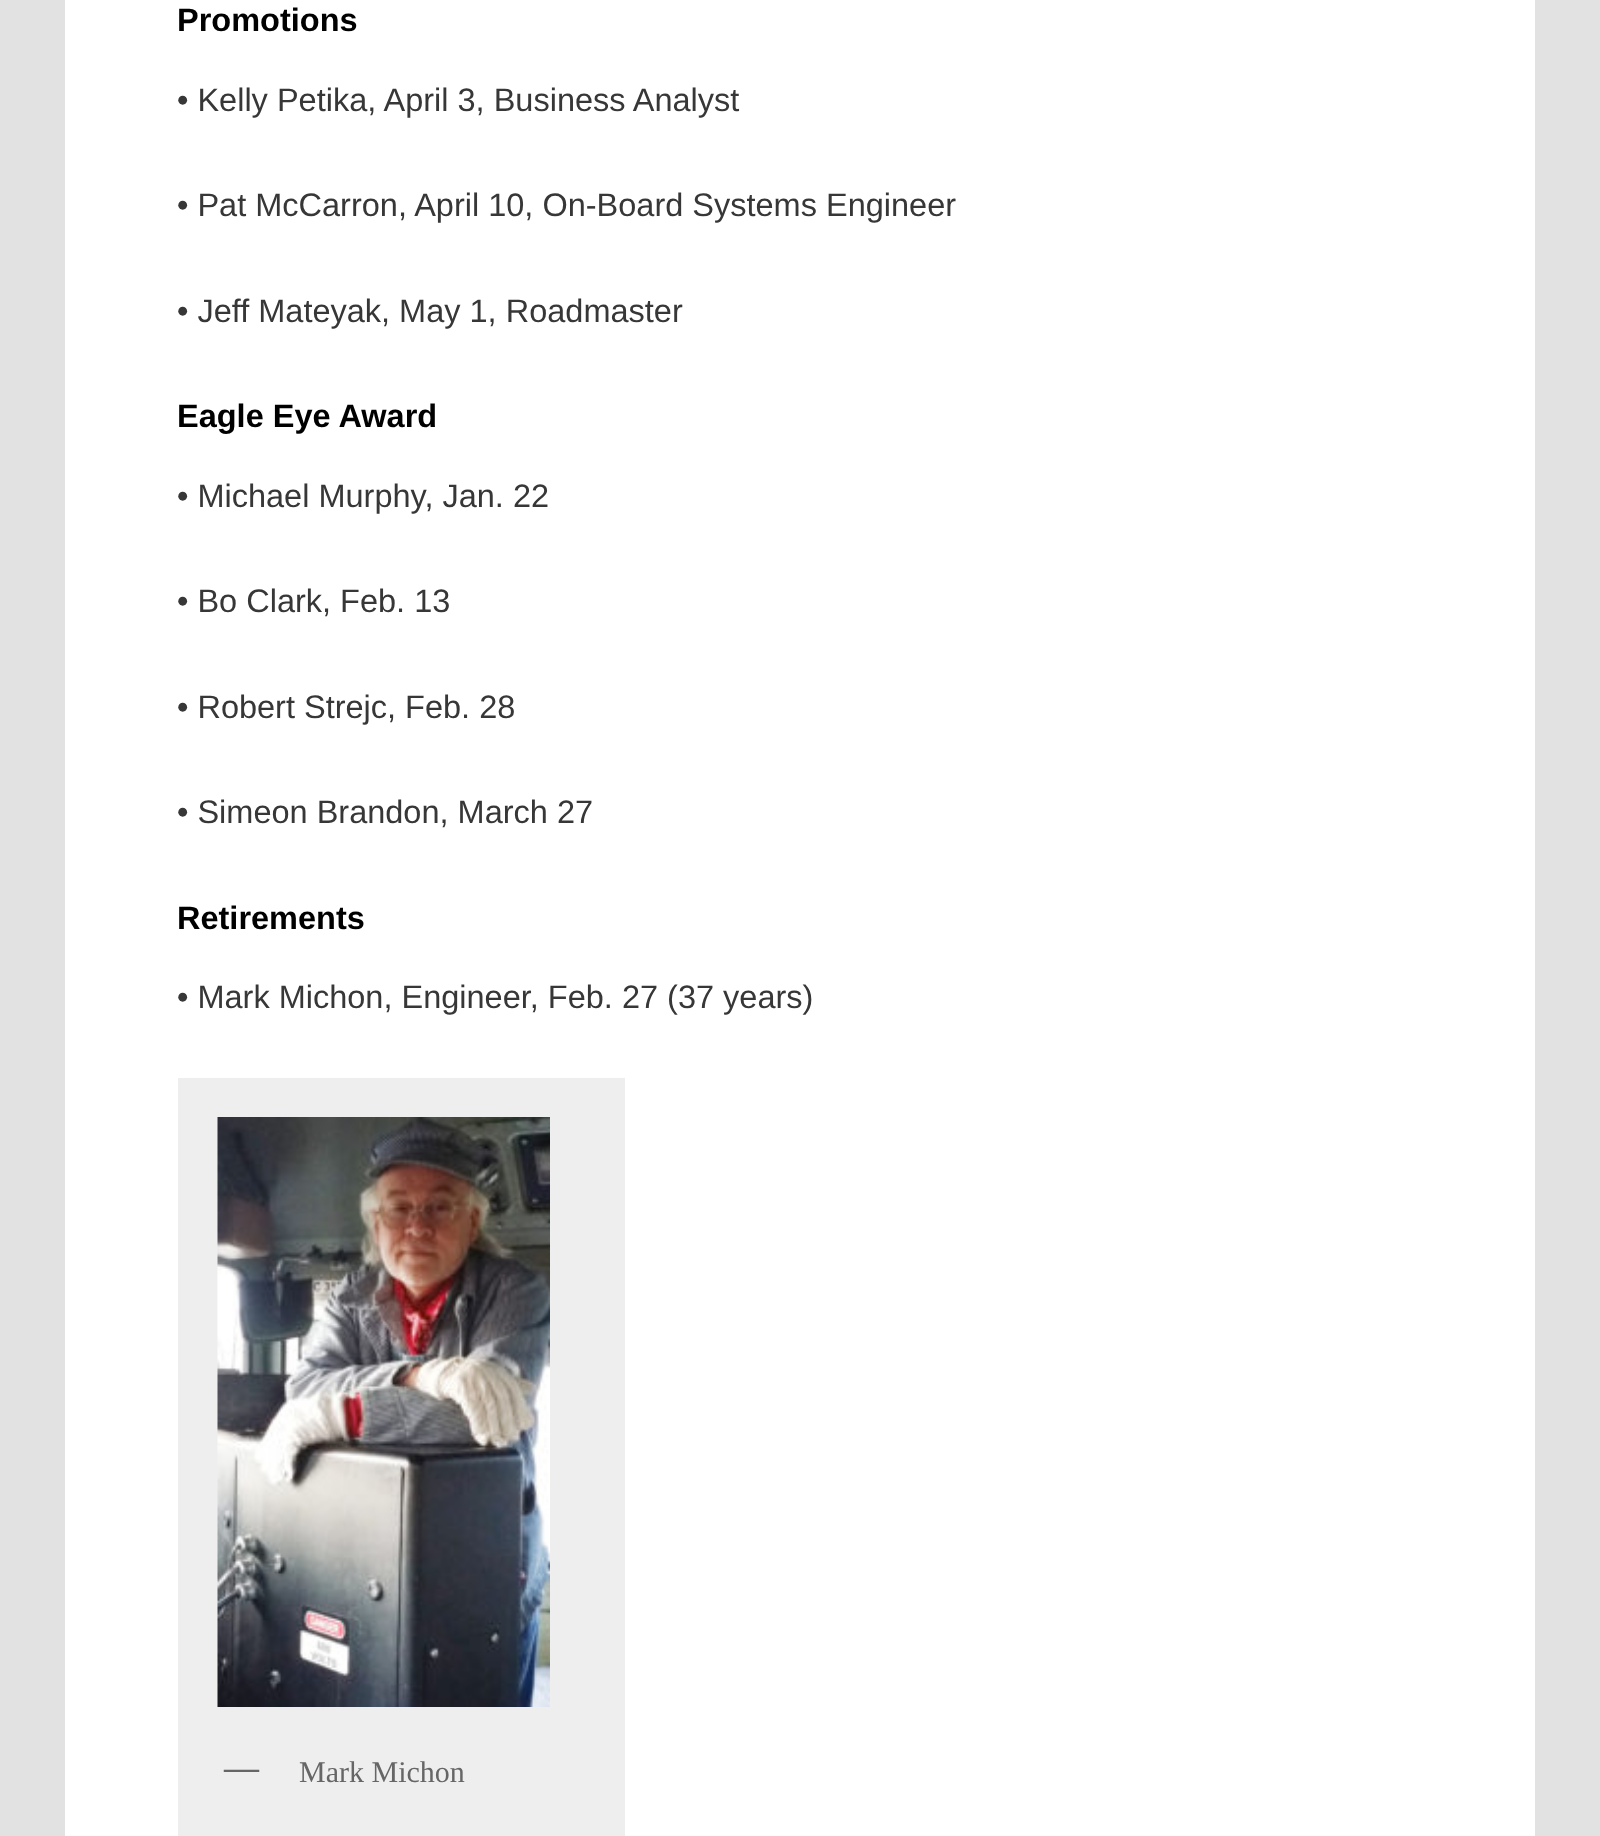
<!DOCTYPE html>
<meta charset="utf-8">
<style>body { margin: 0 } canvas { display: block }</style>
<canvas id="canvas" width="1600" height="1836"></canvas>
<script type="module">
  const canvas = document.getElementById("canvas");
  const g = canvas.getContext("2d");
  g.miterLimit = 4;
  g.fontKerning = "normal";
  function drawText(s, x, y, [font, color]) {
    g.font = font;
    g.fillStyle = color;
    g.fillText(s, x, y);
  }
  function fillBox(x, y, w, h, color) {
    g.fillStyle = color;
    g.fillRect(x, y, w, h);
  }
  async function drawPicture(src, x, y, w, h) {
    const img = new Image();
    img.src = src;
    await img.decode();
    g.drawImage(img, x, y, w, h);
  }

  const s1 = ["bold 32.5px Liberation Sans", "#000000"];
  const s2 = ["32.5px Liberation Sans", "#373737"];
  const s3 = ["bold 35px Liberation Serif", "#666666"];
  const s4 = ["30px Liberation Serif", "#666666"];

  fillBox(0, 0, 1600, 1836, "#E2E2E2");
  fillBox(65, 0, 1470, 1836, "#FFFFFF");
  drawText("Promotions", 177, 31, s1);
  drawText("• Kelly Petika, April 3, Business Analyst", 177, 111, s2);
  drawText("• Pat McCarron, April 10, On-Board Systems Engineer", 177, 216, s2);
  drawText("• Jeff Mateyak, May 1, Roadmaster", 177, 322, s2);
  drawText("Eagle Eye Award", 177, 427, s1);
  drawText("• Michael Murphy, Jan. 22", 177, 507, s2);
  drawText("• Bo Clark, Feb. 13", 177, 612, s2);
  drawText("• Robert Strejc, Feb. 28", 177, 718, s2);
  drawText("• Simeon Brandon, March 27", 177, 823, s2);
  drawText("Retirements", 177, 929, s1);
  drawText("• Mark Michon, Engineer, Feb. 27 (37 years)", 177, 1008, s2);
  fillBox(178, 1078, 447, 758, "#EEEEEE");
  await drawPicture("pic1.png", 217, 1117, 333, 590);
  drawText("—", 224, 1779, s3);
  drawText("Mark Michon", 299, 1782, s4);
</script>
